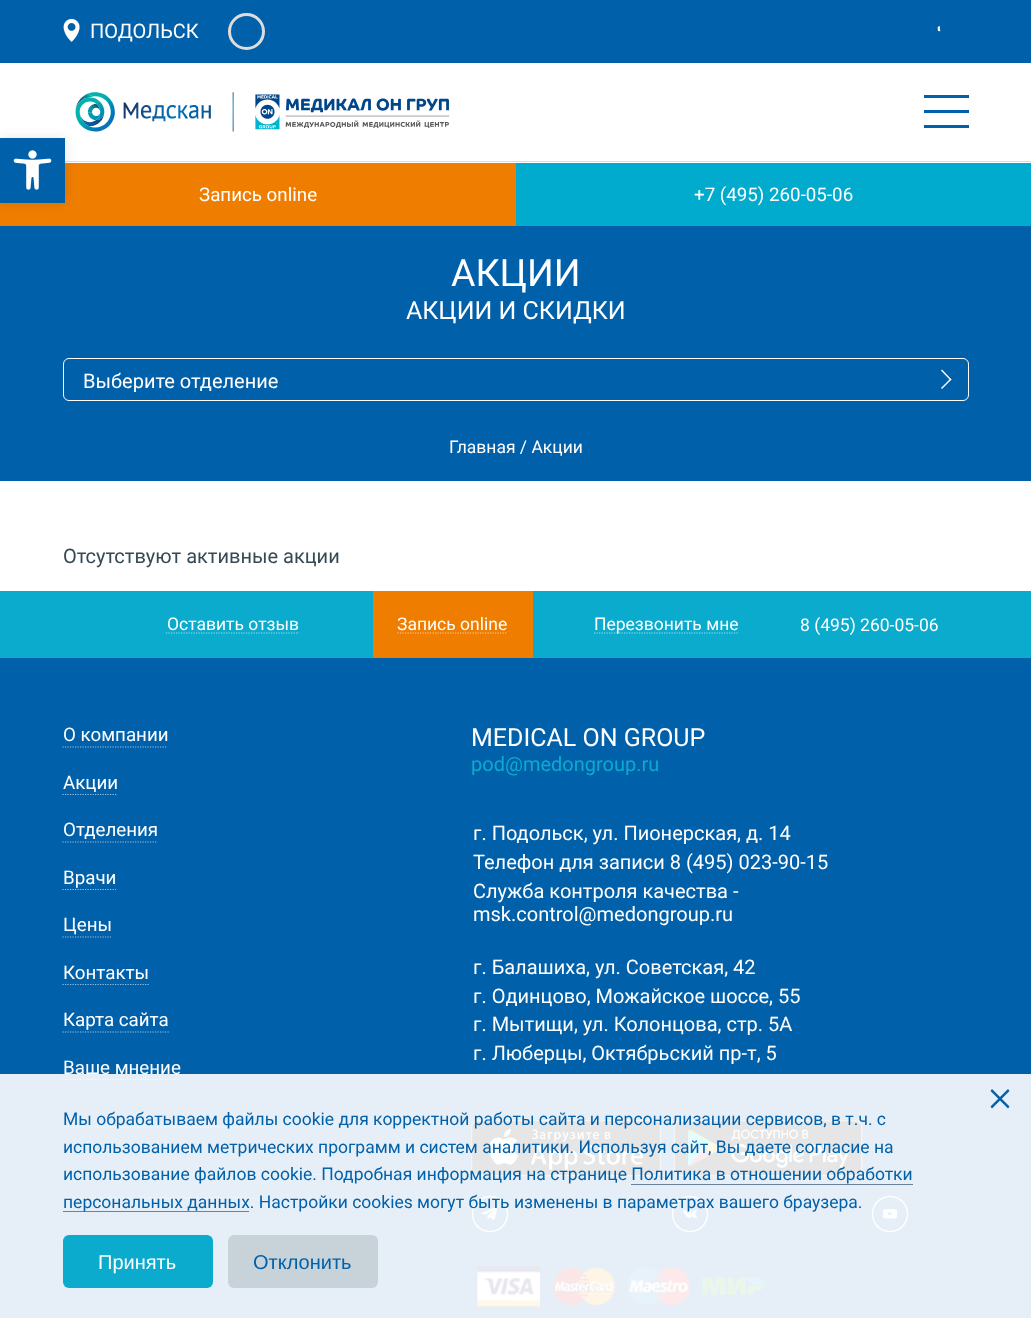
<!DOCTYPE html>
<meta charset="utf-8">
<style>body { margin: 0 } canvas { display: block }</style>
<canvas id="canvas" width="1031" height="1318"></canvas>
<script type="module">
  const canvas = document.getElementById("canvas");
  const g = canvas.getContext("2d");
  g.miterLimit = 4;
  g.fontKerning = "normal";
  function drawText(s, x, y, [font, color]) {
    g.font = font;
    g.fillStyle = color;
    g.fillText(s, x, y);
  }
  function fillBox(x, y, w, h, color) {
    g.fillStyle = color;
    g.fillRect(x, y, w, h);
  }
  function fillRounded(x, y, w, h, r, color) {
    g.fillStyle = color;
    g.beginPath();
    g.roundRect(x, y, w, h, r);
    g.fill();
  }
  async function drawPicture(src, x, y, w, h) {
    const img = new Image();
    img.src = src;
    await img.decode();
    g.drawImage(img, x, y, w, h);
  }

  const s1 = ["20px Roboto", "#FFFFFF"];
  const s2 = ["18.75px Roboto", "#FFFFFF"];
  const s3 = ["37.5px Roboto", "#FFFFFF"];
  const s4 = ["25px Roboto", "#FFFFFF"];
  const s5 = ["17.5px Roboto", "#FFFFFF"];
  const s6 = ["20px Roboto", "#354A54"];
  const s7 = ["20px Roboto", "#0BABCD"];
  const s8 = ["17.5px Roboto", "#0060AA"];
  const s9 = ["20px Liberation Sans", "#FFFFFF"];
  const s10 = ["20px Liberation Sans", "#0060AA"];

  fillBox(0, 0, 1031, 1318, "#FFFFFF");
  fillBox(0, 0, 1031, 63, "#0060AA");
  await drawPicture("pic1.png", 63, 18, 17, 24);
  drawText("ПОДОЛЬСК", 90, 38, s1);
  g.beginPath();
  g.arc(246.5, 31.5, 17, 0, Math.PI * 2);
  g.strokeStyle = "#DDDDDD";
  g.lineWidth = 3;
  g.stroke();
  await drawPicture("pic2.png", 937, 26, 4, 6);
  fillBox(65, 161, 966, 1, "#D5DCE2");
  await drawPicture("pic4.png", 75, 92, 375, 40);
  fillBox(0, 163, 516, 63, "#EF7D00");
  g.fillStyle = "rgba(0, 0, 0, 0.1)";
  g.filter = "blur(6px)";
  g.beginPath();
  g.rect(0, 138, 65, 65);
  g.fill();
  g.filter = "none";
  fillBox(0, 138, 65, 65, "#0060AA");
  await drawPicture("pic3.png", 13, 150, 39, 40);
  fillBox(924, 110, 45, 3, "#0060AA");
  fillBox(924, 95, 45, 3, "#0060AA");
  fillBox(924, 125, 45, 3, "#0060AA");
  drawText("Запись online", 199, 201, s2);
  fillBox(516, 163, 515, 63, "#01ABCE");
  drawText("+7 (495) 260-05-06", 694, 201, s2);
  fillBox(0, 226, 1031, 255, "#0060AA");
  drawText("АКЦИИ", 451, 286, s3);
  drawText("АКЦИИ И СКИДКИ", 406, 319, s4);
  g.beginPath();
  g.roundRect(63.5, 358.5, 905, 42, 5.5);
  g.strokeStyle = "#FFFFFF";
  g.lineWidth = 1;
  g.stroke();
  drawText("Выберите отделение", 83, 388, s1);
  g.beginPath();
  g.moveTo(942, 369.5);
  g.lineTo(951.5, 379.5);
  g.lineTo(950.5, 380.5);
  g.lineTo(941, 370.5);
  g.closePath();
  g.fill();
  g.beginPath();
  g.moveTo(950.5, 378.5);
  g.lineTo(951.5, 379.5);
  g.lineTo(942, 389);
  g.lineTo(941, 388);
  g.closePath();
  g.fill();
  drawText("Главная / Акции", 449, 453, s5);
  drawText("Отсутствуют активные акции", 63, 563, s6);
  fillBox(0, 591, 1031, 67, "#0BABCD");
  g.beginPath();
  g.moveTo(166, 633);
  g.lineTo(299, 633);
  g.strokeStyle = "#9DDDEB";
  g.lineWidth = 1.2;
  g.setLineDash([1.25, 1.25]);
  g.stroke();
  drawText("Оставить отзыв", 167, 630, s5);
  fillBox(373, 591, 160, 67, "#EF7D00");
  g.beginPath();
  g.moveTo(397.5, 633);
  g.lineTo(507.5, 633);
  g.strokeStyle = "#F9CB99";
  g.stroke();
  drawText("Запись online", 397, 630, s5);
  g.beginPath();
  g.moveTo(594, 633);
  g.lineTo(739, 633);
  g.strokeStyle = "#9DDDEB";
  g.stroke();
  drawText("Перезвонить мне", 594, 630, s5);
  drawText("8 (495) 260-05-06", 800, 631, s5);
  fillBox(0, 658, 1031, 660, "#0060AA");
  drawText("О компании", 63, 741, s2);
  g.beginPath();
  g.moveTo(62.5, 747);
  g.lineTo(167.5, 747);
  g.strokeStyle = "#99BFDD";
  g.stroke();
  drawText("Акции", 63, 789, s2);
  g.beginPath();
  g.moveTo(62.5, 794.5);
  g.lineTo(117.5, 794.5);
  g.stroke();
  drawText("Отделения", 63, 836, s2);
  g.beginPath();
  g.moveTo(62.5, 842);
  g.lineTo(157.5, 842);
  g.stroke();
  drawText("Врачи", 63, 884, s2);
  g.beginPath();
  g.moveTo(62.5, 889.5);
  g.lineTo(116, 889.5);
  g.stroke();
  drawText("Цены", 63, 931, s2);
  g.beginPath();
  g.moveTo(62.5, 937);
  g.lineTo(111, 937);
  g.stroke();
  drawText("Контакты", 63, 979, s2);
  g.beginPath();
  g.moveTo(62.5, 984.5);
  g.lineTo(149, 984.5);
  g.stroke();
  drawText("Карта сайта", 63, 1026, s2);
  g.beginPath();
  g.moveTo(62.5, 1032);
  g.lineTo(169, 1032);
  g.stroke();
  drawText("Ваше мнение", 63, 1074, s2);
  g.beginPath();
  g.moveTo(62.5, 1079.5);
  g.lineTo(180, 1079.5);
  g.stroke();
  g.beginPath();
  g.moveTo(62.5, 1127);
  g.lineTo(265, 1127);
  g.stroke();
  g.beginPath();
  g.moveTo(62.5, 1174.5);
  g.lineTo(352.5, 1174.5);
  g.stroke();
  g.beginPath();
  g.moveTo(62.5, 1198);
  g.lineTo(262.5, 1198);
  g.stroke();
  drawText("MEDICAL ON GROUP", 471, 746, s4);
  drawText("pod@medongroup.ru", 471, 771, s7);
  drawText("г. Подольск, ул. Пионерская, д. 14", 473, 840, s1);
  drawText("Телефон для записи 8 (495) 023-90-15", 473, 869, s1);
  drawText("Служба контроля качества -", 473, 898, s1);
  drawText("msk.control@medongroup.ru", 473, 921, s1);
  drawText("г. Балашиха, ул. Советская, 42", 473, 974, s1);
  drawText("г. Одинцово, Можайское шоссе, 55", 473, 1003, s1);
  drawText("г. Мытищи, ул. Колонцова, стр. 5А", 473, 1031, s1);
  drawText("г. Люберцы, Октябрьский пр-т, 5", 473, 1060, s1);
  await drawPicture("pic5.png", 471, 1120, 191, 57);
  await drawPicture("pic6.png", 673, 1120, 190, 57);
  await drawPicture("pic7.png", 471, 1195, 38, 38);
  await drawPicture("pic8.png", 671, 1195, 38, 38);
  await drawPicture("pic9.png", 871, 1195, 38, 38);
  await drawPicture("pic10.png", 477, 1266, 63, 41);
  await drawPicture("pic11.png", 552, 1267, 63, 38);
  await drawPicture("pic12.png", 627, 1267, 63, 38);
  await drawPicture("pic13.png", 702, 1277, 63, 18);
  fillBox(0, 1074, 1031, 244, "rgba(255, 255, 255, 0.9)");
  g.fillStyle = "#0060AA";
  g.beginPath();
  g.moveTo(990.5, 1106.5);
  g.lineTo(1008, 1089);
  g.lineTo(1009.5, 1091);
  g.lineTo(992, 1108.5);
  g.closePath();
  g.fill();
  g.beginPath();
  g.moveTo(992, 1089);
  g.lineTo(1009.5, 1106.5);
  g.lineTo(1008, 1108.5);
  g.lineTo(990.5, 1091);
  g.closePath();
  g.fill();
  drawText("Мы обрабатываем файлы cookie для корректной работы сайта и персонализации сервисов, в т.ч. с", 63, 1125, s8);
  drawText("использованием метрических программ и систем аналитики. Используя сайт, Вы даете согласие на", 63, 1153, s8);
  drawText("использование файлов cookie. Подробная информация на странице Политика в отношении обработки", 63, 1180, s8);
  fillBox(63, 1211, 186, 1, "#6B839A");
  drawText("персональных данных. Настройки cookies могут быть изменены в параметрах вашего браузера.", 63, 1208, s8);
  fillBox(631, 1184, 282, 1, "#6B839A");
  fillRounded(63, 1235, 150, 53, 6, "#0BABCD");
  drawText("Принять", 98, 1269, s9);
  fillRounded(228, 1235, 150, 53, 6, "#C8D3D9");
  drawText("Отклонить", 253, 1269, s10);
</script>
